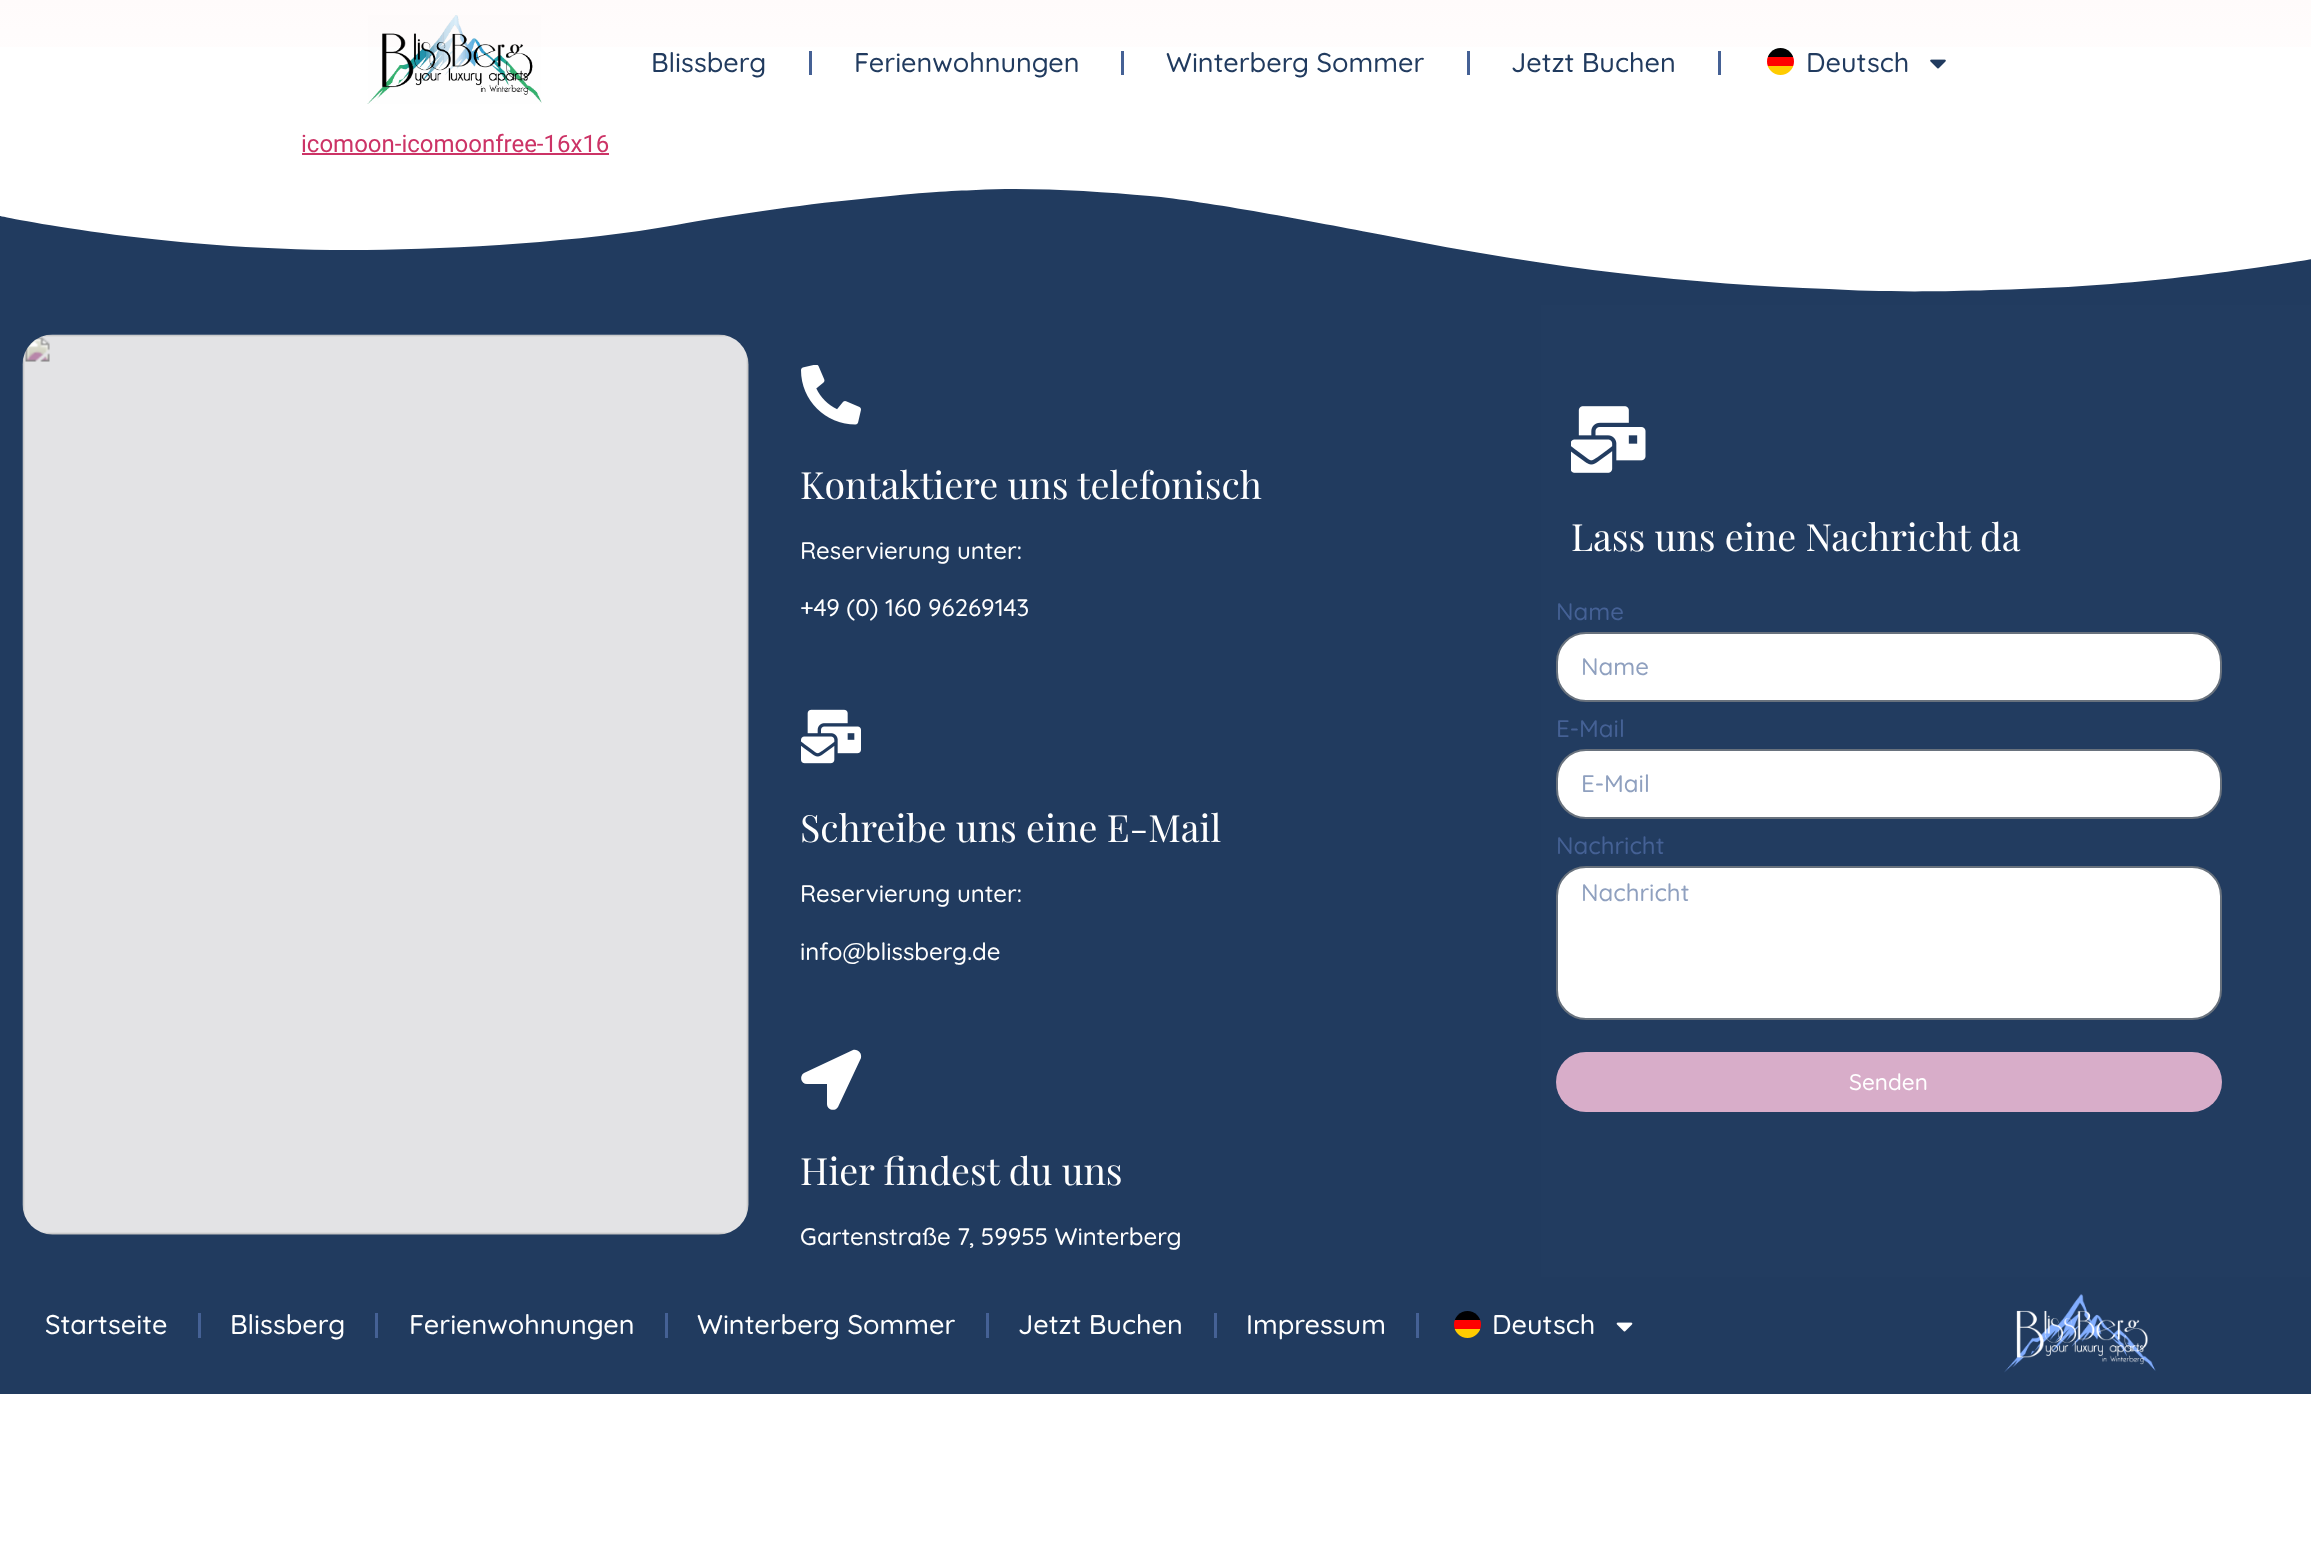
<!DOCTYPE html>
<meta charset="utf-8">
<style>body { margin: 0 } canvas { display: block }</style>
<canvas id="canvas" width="2311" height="1555"></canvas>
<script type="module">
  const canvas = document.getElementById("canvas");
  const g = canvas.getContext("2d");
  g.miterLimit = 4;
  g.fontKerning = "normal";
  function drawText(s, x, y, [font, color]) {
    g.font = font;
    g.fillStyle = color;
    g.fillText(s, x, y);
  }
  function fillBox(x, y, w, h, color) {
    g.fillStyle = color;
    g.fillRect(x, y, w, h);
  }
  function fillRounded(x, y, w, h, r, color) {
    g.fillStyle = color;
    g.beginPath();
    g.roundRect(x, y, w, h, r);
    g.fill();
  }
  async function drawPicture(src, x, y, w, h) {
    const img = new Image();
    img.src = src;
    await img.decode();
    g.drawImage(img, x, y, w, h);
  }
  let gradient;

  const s1 = ["500 27px Quicksand", "#213B5F"];
  const s2 = ["24px Roboto", "#CC3366"];
  const s3 = ["37.5px Playfair Display", "#FFFFFF"];
  const s4 = ["500 24px Quicksand", "#FFFFFF"];
  const s5 = ["500 24px Quicksand", "#456195"];
  const s6 = ["500 24px Quicksand", "#8FA0BF"];
  const s7 = ["500 22.5px Quicksand", "#FFFFFF"];
  const s8 = ["500 27px Quicksand", "#FFFFFF"];

  fillBox(0, 0, 2311, 1555, "#FFFFFF");
  gradient = g.createLinearGradient(1156, 0, 1156, 126);
  gradient.addColorStop(0, "#FFFBFB");
  gradient.addColorStop(1, "#FFFFFF");
  g.fillStyle = gradient;
  g.fillRect(0, 0, 2311, 47);
  await drawPicture("pic1.png", 367, 15, 175, 89);
  drawText("Blissberg", 651, 72, s1);
  fillBox(809, 51, 3, 24, "#456195");
  drawText("Ferienwohnungen", 854, 72, s1);
  fillBox(1121, 51, 3, 24, "#456195");
  drawText("Winterberg Sommer", 1166, 72, s1);
  fillBox(1467, 51, 3, 24, "#456195");
  drawText("Jetzt Buchen", 1511, 72, s1);
  fillBox(1718, 51, 3, 24, "#456195");
  g.save();
  g.beginPath();
  g.roundRect(1767, 48, 27, 27, 13.5);
  g.clip();
  fillBox(1767, 66, 27, 9, "#FFCC00");
  fillBox(1767, 48, 27, 9, "#000001");
  fillBox(1767, 57, 27, 9, "#FF0000");
  g.restore();
  drawText("Deutsch", 1806, 72, s1);
  await drawPicture("pic2.png", 1930, 59, 16, 10);
  drawText("icomoon-icomoonfree-16x16", 301, 152, s2);
  fillBox(302, 153, 307, 2, "#CC3366");
  fillBox(0, 189, 2311, 116, "#213B5F");
  g.fillStyle = "#FFFFFF";
  g.beginPath();
  g.moveTo(976, 190);
  g.bezierCurveTo(1028, 187, 1095, 191, 1150, 196);
  g.bezierCurveTo(1205, 201, 1315, 222, 1383, 235);
  g.bezierCurveTo(1558, 270, 1692, 284, 1829, 289);
  g.bezierCurveTo(1883, 292, 1941, 293, 2068, 287);
  g.bezierCurveTo(2194, 280, 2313, 259, 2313, 259);
  g.lineTo(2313, 183);
  g.lineTo(0, 183);
  g.lineTo(0, 216);
  g.bezierCurveTo(0, 216, 166, 252, 366, 250);
  g.bezierCurveTo(457, 249, 581, 242, 676, 225);
  g.bezierCurveTo(725, 216, 797, 205, 861, 199);
  g.bezierCurveTo(924, 192, 952, 191, 976, 190);
  g.closePath();
  g.fill();
  fillBox(0, 305, 1541, 972, "#213B5F");
  await drawPicture("pic3.png", 22, 334, 727, 901);
  await drawPicture("pic4.png", 801, 365, 60, 60);
  drawText("Kontaktiere uns telefonisch", 800, 499, s3);
  drawText("Reservierung unter:", 800, 559, s4);
  drawText("+49 (0) 160 96269143", 800, 616, s4);
  await drawPicture("pic5.png", 801, 709, 60, 55);
  drawText("Schreibe uns eine E-Mail", 800, 842, s3);
  drawText("Reservierung unter:", 800, 902, s4);
  drawText("info@blissberg.de", 800, 960, s4);
  g.beginPath();
  g.moveTo(853, 1050);
  g.lineTo(804, 1073);
  g.bezierCurveTo(799, 1076, 801, 1084, 807, 1084);
  g.lineTo(827, 1084);
  g.lineTo(827, 1104);
  g.bezierCurveTo(827, 1110, 835, 1112, 838, 1107);
  g.lineTo(861, 1058);
  g.bezierCurveTo(862, 1053, 858, 1049, 853, 1050);
  g.closePath();
  g.fill();
  drawText("Hier findest du uns", 800, 1185, s3);
  drawText("Gartenstraße 7, 59955 Winterberg", 800, 1245, s4);
  fillBox(1541, 305, 770, 972, "#223C60");
  await drawPicture("pic6.png", 1571, 406, 75, 67);
  drawText("Lass uns eine Nachricht da", 1571, 551, s3);
  drawText("Name", 1556, 620, s5);
  g.fillStyle = "#FFFFFF";
  g.beginPath();
  g.roundRect(1557, 633, 664, 68, 29);
  g.fill();
  g.strokeStyle = "#69727D";
  g.lineWidth = 2;
  g.stroke();
  drawText("Name", 1581, 675, s6);
  drawText("E-Mail", 1556, 737, s5);
  g.fillStyle = "#FFFFFF";
  g.beginPath();
  g.roundRect(1557, 750, 664, 68, 29);
  g.fill();
  g.stroke();
  drawText("E-Mail", 1581, 792, s6);
  drawText("Nachricht", 1556, 854, s5);
  g.fillStyle = "#FFFFFF";
  g.beginPath();
  g.roundRect(1557, 867, 664, 152, 29);
  g.fill();
  g.stroke();
  drawText("Nachricht", 1581, 901, s6);
  fillRounded(1556, 1052, 666, 60, 30, "#D8ADC9");
  drawText("Senden", 1849, 1090, s7);
  fillBox(0, 1277, 2311, 117, "#213B5F");
  drawText("Startseite", 45, 1334, s8);
  fillBox(198, 1313, 3, 25, "#456195");
  drawText("Blissberg", 230, 1334, s8);
  fillBox(375, 1313, 3, 25, "#456195");
  drawText("Ferienwohnungen", 409, 1334, s8);
  fillBox(665, 1313, 3, 25, "#456195");
  drawText("Winterberg Sommer", 697, 1334, s8);
  fillBox(986, 1313, 3, 25, "#456195");
  drawText("Jetzt Buchen", 1018, 1334, s8);
  fillBox(1214, 1313, 3, 25, "#456195");
  drawText("Impressum", 1246, 1334, s8);
  fillBox(1416, 1313, 3, 25, "#456195");
  g.save();
  g.beginPath();
  g.roundRect(1454, 1311, 27, 27, 13.5);
  g.clip();
  fillBox(1454, 1329, 27, 9, "#FFCC00");
  fillBox(1454, 1311, 27, 9, "#000001");
  fillBox(1454, 1320, 27, 9, "#FF0000");
  g.restore();
  drawText("Deutsch", 1492, 1334, s8);
  await drawPicture("pic7.png", 1616, 1322, 17, 10);
  await drawPicture("pic8.png", 2004, 1294, 152, 79);
</script>
